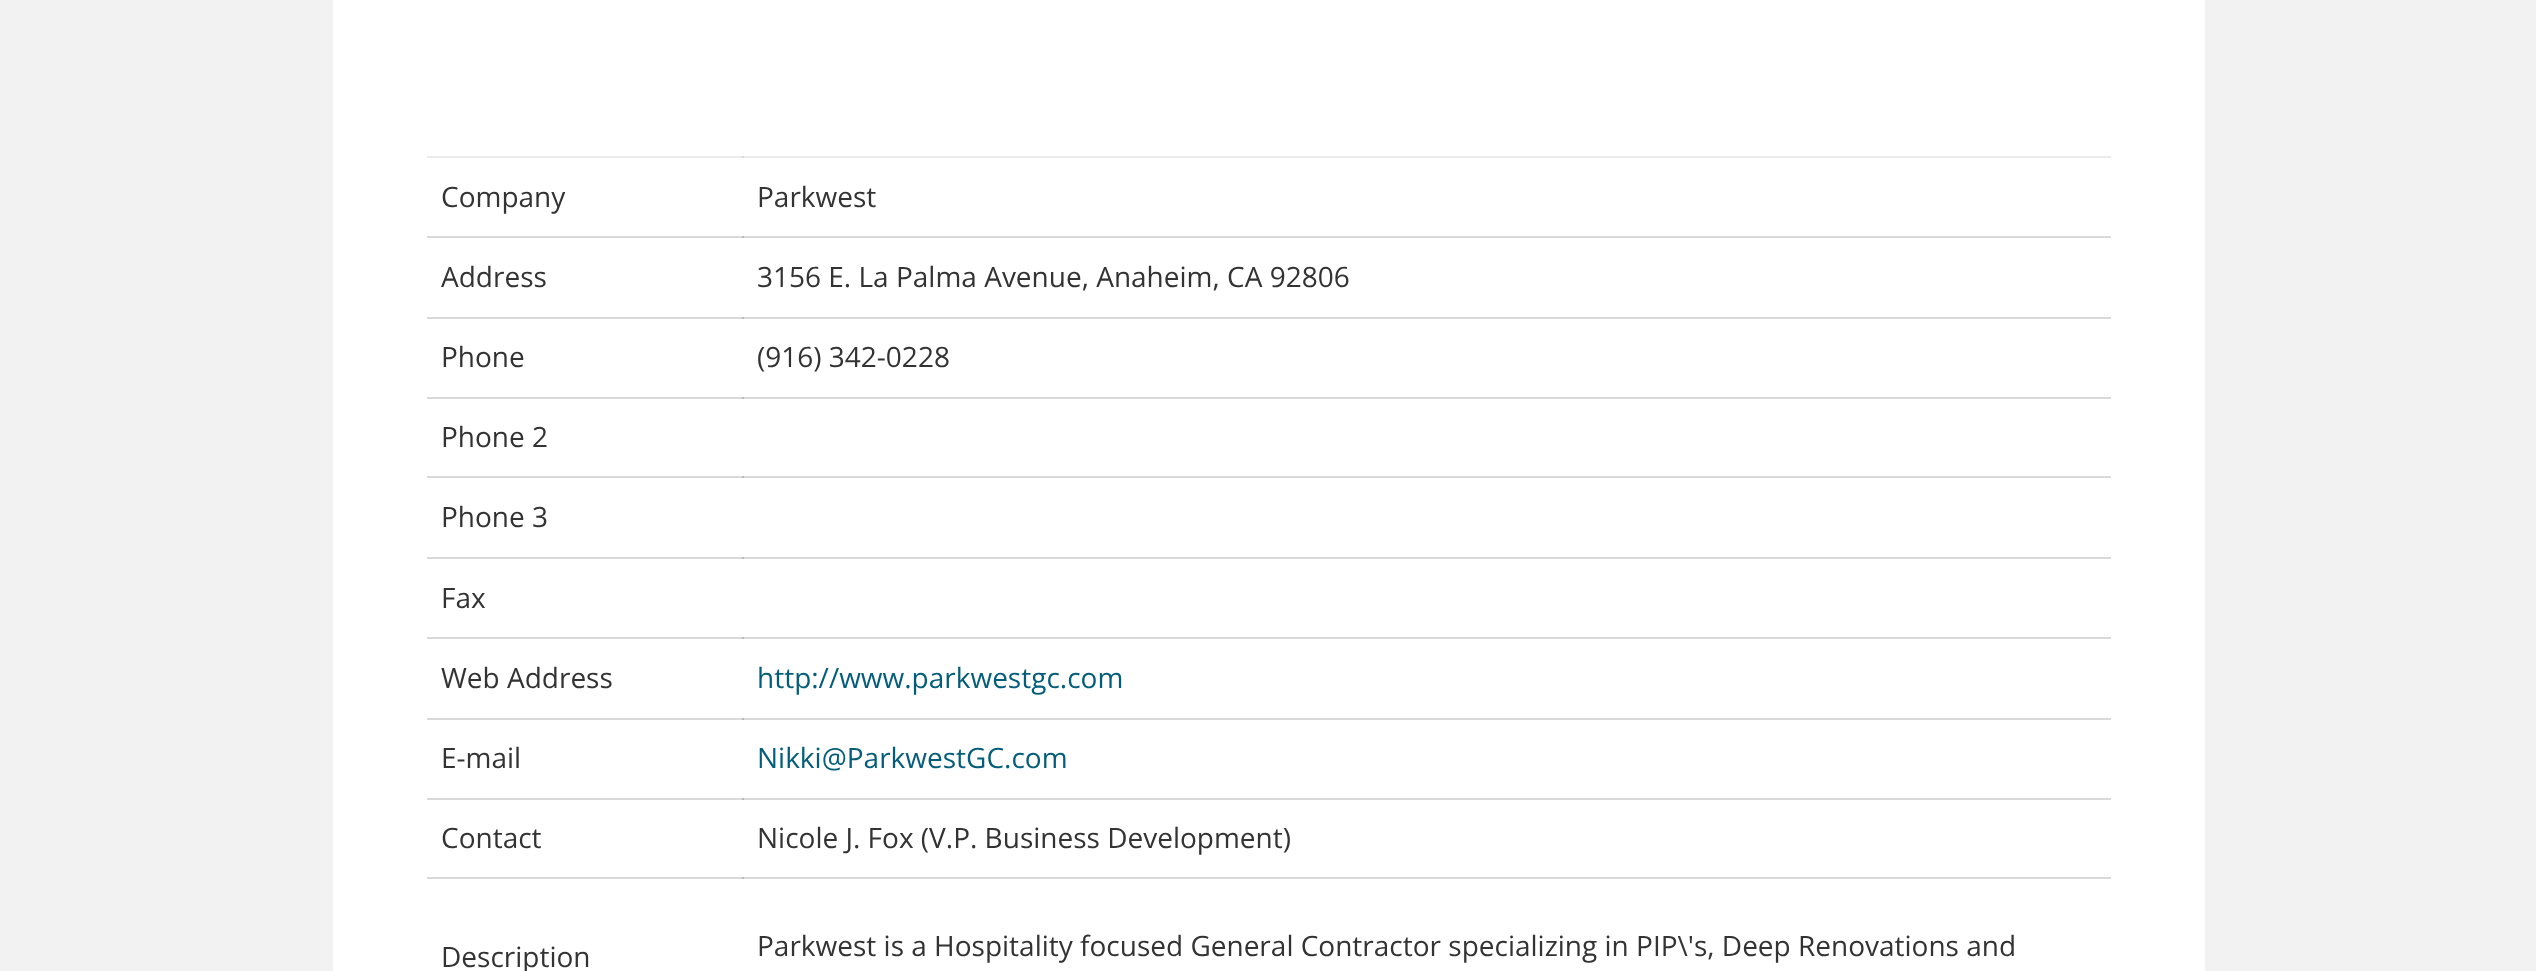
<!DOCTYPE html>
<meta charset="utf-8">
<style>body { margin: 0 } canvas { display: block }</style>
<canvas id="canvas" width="2536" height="971"></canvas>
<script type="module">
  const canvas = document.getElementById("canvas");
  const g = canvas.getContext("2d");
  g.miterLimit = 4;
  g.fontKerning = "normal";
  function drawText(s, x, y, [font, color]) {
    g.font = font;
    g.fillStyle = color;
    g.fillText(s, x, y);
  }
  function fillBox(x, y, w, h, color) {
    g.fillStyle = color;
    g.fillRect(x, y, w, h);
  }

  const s1 = ["28px Open Sans", "#333333"];
  const s2 = ["28px Open Sans", "#045D7A"];

  fillBox(0, 0, 2536, 971, "#F2F2F2");
  fillBox(333, 0, 1872, 971, "#FFFFFF");
  fillBox(427, 156, 1684, 2, "#EBEBEB");
  fillBox(427, 236, 1684, 2, "#D9D9D9");
  fillBox(427, 317, 1684, 2, "#D9D9D9");
  fillBox(427, 397, 1684, 2, "#D9D9D9");
  fillBox(427, 476, 1684, 2, "#D9D9D9");
  fillBox(427, 557, 1684, 2, "#D9D9D9");
  fillBox(427, 637, 1684, 2, "#D9D9D9");
  fillBox(427, 718, 1684, 2, "#D9D9D9");
  fillBox(427, 798, 1684, 2, "#D9D9D9");
  fillBox(427, 877, 1684, 2, "#D9D9D9");
  drawText("Company", 441, 207, s1);
  fillBox(742, 156, 2, 2, "#D9D9D9");
  drawText("Parkwest", 757, 207, s1);
  drawText("Address", 441, 287, s1);
  fillBox(742, 236, 2, 2, "#B9B9B9");
  drawText("3156 E. La Palma Avenue, Anaheim, CA 92806", 757, 287, s1);
  drawText("Phone", 441, 367, s1);
  fillBox(742, 317, 2, 2, "#B9B9B9");
  drawText("(916) 342-0228", 757, 367, s1);
  fillBox(742, 397, 2, 2, "#B9B9B9");
  drawText("Phone 2", 441, 447, s1);
  fillBox(742, 476, 2, 2, "#B9B9B9");
  drawText("Phone 3", 441, 527, s1);
  fillBox(742, 557, 2, 2, "#B9B9B9");
  drawText("Fax", 441, 608, s1);
  drawText("Web Address", 441, 688, s1);
  fillBox(742, 637, 2, 2, "#B9B9B9");
  drawText("http://www.parkwestgc.com", 757, 688, s2);
  drawText("E-mail", 441, 768, s1);
  fillBox(742, 718, 2, 2, "#B9B9B9");
  drawText("Nikki@ParkwestGC.com", 757, 768, s2);
  drawText("Contact", 441, 848, s1);
  fillBox(742, 798, 2, 2, "#B9B9B9");
  drawText("Nicole J. Fox (V.P. Business Development)", 757, 848, s1);
  drawText("Description", 441, 967, s1);
  fillBox(742, 877, 2, 2, "#B9B9B9");
  drawText("Parkwest is a Hospitality focused General Contractor specializing in PIP\\'s, Deep Renovations and", 757, 956, s1);
</script>
